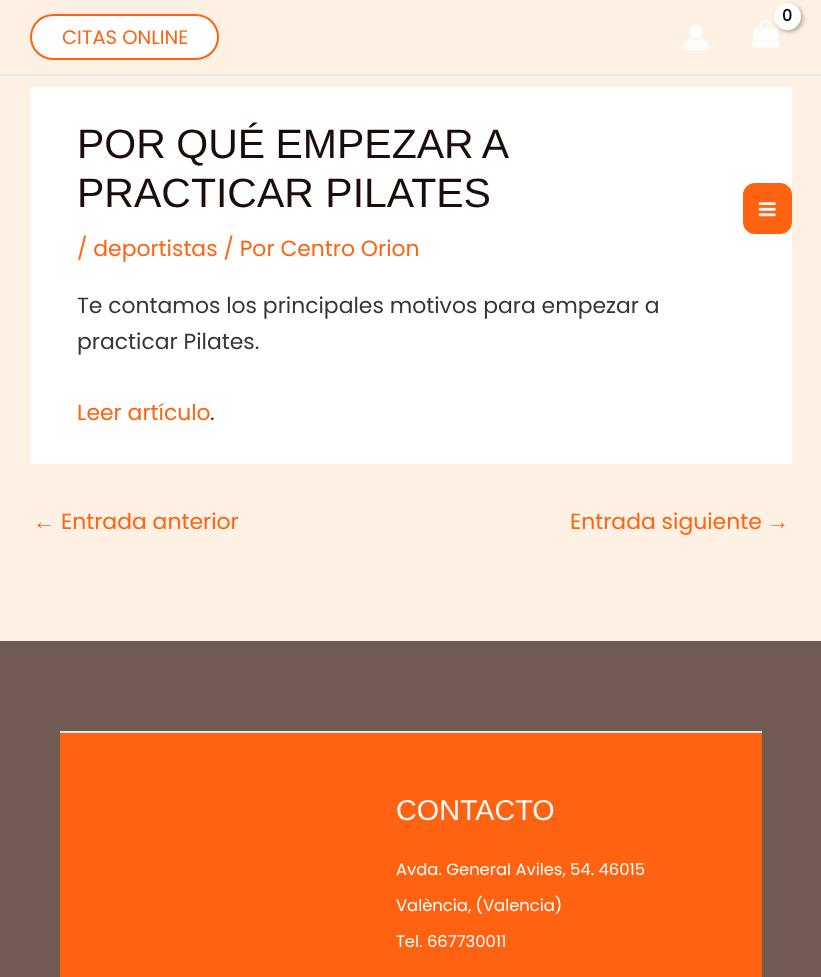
<!DOCTYPE html>
<meta charset="utf-8">
<style>body { margin: 0 } canvas { display: block }</style>
<canvas id="canvas" width="821" height="977"></canvas>
<script type="module">
  const canvas = document.getElementById("canvas");
  const g = canvas.getContext("2d");
  g.miterLimit = 4;
  g.fontKerning = "normal";
  function drawText(s, x, y, [font, color]) {
    g.font = font;
    g.fillStyle = color;
    g.fillText(s, x, y);
  }
  function fillBox(x, y, w, h, color) {
    g.fillStyle = color;
    g.fillRect(x, y, w, h);
  }
  function fillRounded(x, y, w, h, r, color) {
    g.fillStyle = color;
    g.beginPath();
    g.roundRect(x, y, w, h, r);
    g.fill();
  }
  async function drawPicture(src, x, y, w, h) {
    const img = new Image();
    img.src = src;
    await img.decode();
    g.drawImage(img, x, y, w, h);
  }

  const s1 = ["bold 16px Poppins", "#000000"];
  const s2 = ["19.5px Poppins", "#FF6210"];
  const s3 = ["41px Liberation Sans", "#1C0D0A"];
  const s4 = ["21.9px Poppins", "#FF6210"];
  const s5 = ["21.9px Poppins", "#353535"];
  const s6 = ["21.9px Liberation Sans", "#FF6210"];
  const s7 = ["28.75px Liberation Sans", "#F4F9F9"];
  const s8 = ["16.4px Poppins", "#FFFFFF"];

  fillBox(0, 0, 821, 977, "#FEF1E4");
  fillBox(0, 74, 821, 2, "#EAEAEA");
  await drawPicture("pic1.png", 752, 20, 28, 28);
  g.fillStyle = "rgba(0, 0, 0, 0.3)";
  g.filter = "blur(2px)";
  g.beginPath();
  g.roundRect(776, 5, 27, 27, 13.5);
  g.fill();
  g.filter = "none";
  g.fillStyle = "#FFFFFF";
  g.beginPath();
  g.arc(787.5, 16.5, 13.5, 0, Math.PI * 2);
  g.fill();
  g.letterSpacing = "-1px";
  drawText("0", 782, 21, s1);
  await drawPicture("pic2.png", 683, 25, 26, 26);
  g.fillStyle = "#FFFFFF";
  g.beginPath();
  g.roundRect(31, 15, 187, 44, 22);
  g.fill();
  g.strokeStyle = "#FF6210";
  g.lineWidth = 2;
  g.stroke();
  g.letterSpacing = "0px";
  drawText("CITAS ONLINE", 62, 44, s2);
  fillBox(30, 87, 762, 377, "#FFFFFF");
  fillRounded(743, 183, 49, 51, 12, "#FF6210");
  await drawPicture("pic3.png", 758, 202, 18, 15);
  g.wordSpacing = "-1px";
  drawText("POR QUÉ EMPEZAR A", 77, 158, s3);
  g.wordSpacing = "0px";
  drawText("PRACTICAR PILATES", 77, 207, s3);
  drawText("/ deportistas / Por Centro Orion", 77, 256, s4);
  drawText("Te contamos los principales motivos para empezar a", 77, 313, s5);
  drawText("practicar Pilates.", 77, 349, s5);
  drawText("Leer artículo", 77, 420, s4);
  drawText(".", 210, 420, s5);
  drawText("←", 33, 529, s6);
  drawText("Entrada anterior", 61, 529, s4);
  drawText("Entrada siguiente", 570, 529, s4);
  drawText("→", 767, 529, s6);
  fillBox(0, 641, 821, 336, "#715954");
  fillBox(60, 733, 702, 244, "#FF6210");
  fillBox(60, 731, 702, 2, "#E6E6E6");
  drawText("CONTACTO", 396, 820, s7);
  drawText("Avda. General Aviles, 54. 46015", 396, 875, s8);
  drawText("València, (Valencia)", 396, 911, s8);
  drawText("Tel. 667730011", 396, 947, s8);
</script>
